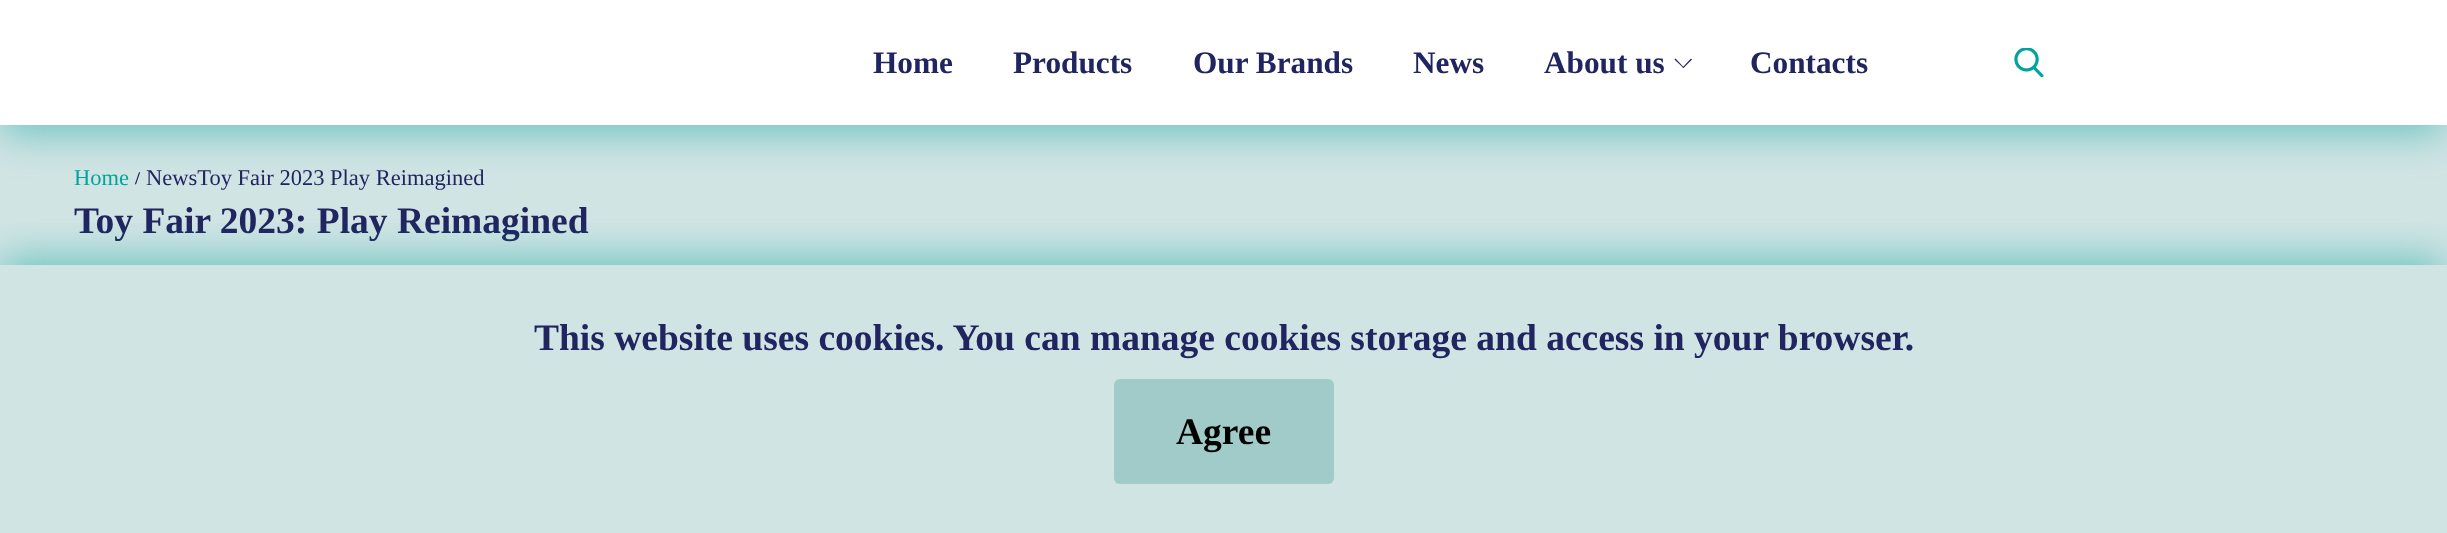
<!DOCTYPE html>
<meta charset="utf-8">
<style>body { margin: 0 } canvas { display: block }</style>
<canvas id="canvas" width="2447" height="533"></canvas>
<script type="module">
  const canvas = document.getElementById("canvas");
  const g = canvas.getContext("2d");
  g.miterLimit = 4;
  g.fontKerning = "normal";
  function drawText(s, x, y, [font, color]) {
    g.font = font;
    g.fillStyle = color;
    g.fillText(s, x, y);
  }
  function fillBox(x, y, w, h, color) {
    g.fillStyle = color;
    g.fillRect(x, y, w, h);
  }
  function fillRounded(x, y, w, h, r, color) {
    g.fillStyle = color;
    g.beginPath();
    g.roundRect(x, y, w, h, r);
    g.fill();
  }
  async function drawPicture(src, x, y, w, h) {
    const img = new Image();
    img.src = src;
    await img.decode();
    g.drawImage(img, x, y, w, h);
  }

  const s1 = ["bold 31.25px Liberation Serif", "#20245F"];
  const s2 = ["22.5px Liberation Serif", "#00A49C"];
  const s3 = ["bold 18px Liberation Serif", "#20245F"];
  const s4 = ["22.5px Liberation Serif", "#20245F"];
  const s5 = ["bold 37.5px Liberation Serif", "#20245F"];
  const s6 = ["bold 37.5px Liberation Serif", "#000000"];

  fillBox(0, 0, 2447, 533, "#D1E4E4");
  g.fillStyle = "rgba(0, 164, 156, 0.5)";
  g.filter = "blur(20px)";
  g.beginPath();
  g.rect(1, 13, 2443, 120);
  g.fill();
  g.filter = "none";
  fillBox(0, 0, 2447, 125, "#FFFFFF");
  drawText("Home", 873, 73, s1);
  drawText("Products", 1013, 73, s1);
  drawText("Our Brands", 1193, 73, s1);
  drawText("News", 1413, 73, s1);
  drawText("About us", 1544, 73, s1);
  g.beginPath();
  g.moveTo(1682.5, 67.5);
  g.lineTo(1691, 58.5);
  g.lineTo(1692, 59.5);
  g.lineTo(1683.5, 68);
  g.closePath();
  g.fill();
  g.beginPath();
  g.moveTo(1674.5, 59.5);
  g.lineTo(1675.5, 58.5);
  g.lineTo(1684, 67.5);
  g.lineTo(1683.5, 68);
  g.closePath();
  g.fill();
  drawText("Contacts", 1750, 73, s1);
  await drawPicture("pic1.png", 2014, 48, 30, 29);
  drawText("Home", 74, 185, s2);
  drawText("/", 135, 184, s3);
  drawText("NewsToy Fair 2023 Play Reimagined", 146, 185, s4);
  drawText("Toy Fair 2023: Play Reimagined", 74, 233, s5);
  g.save();
  g.beginPath();
  g.rect(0, 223, 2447, 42);
  g.clip();
  g.fillStyle = "rgba(0, 164, 156, 0.5)";
  g.filter = "blur(20px)";
  g.beginPath();
  g.rect(1, 258, 2443, 263);
  g.fill();
  g.filter = "none";
  g.restore();
  drawText("This website uses cookies. You can manage cookies storage and access in your browser.", 534, 350, s5);
  fillRounded(1114, 379, 220, 105, 6, "#A0CBC8");
  drawText("Agree", 1176, 444, s6);
</script>
